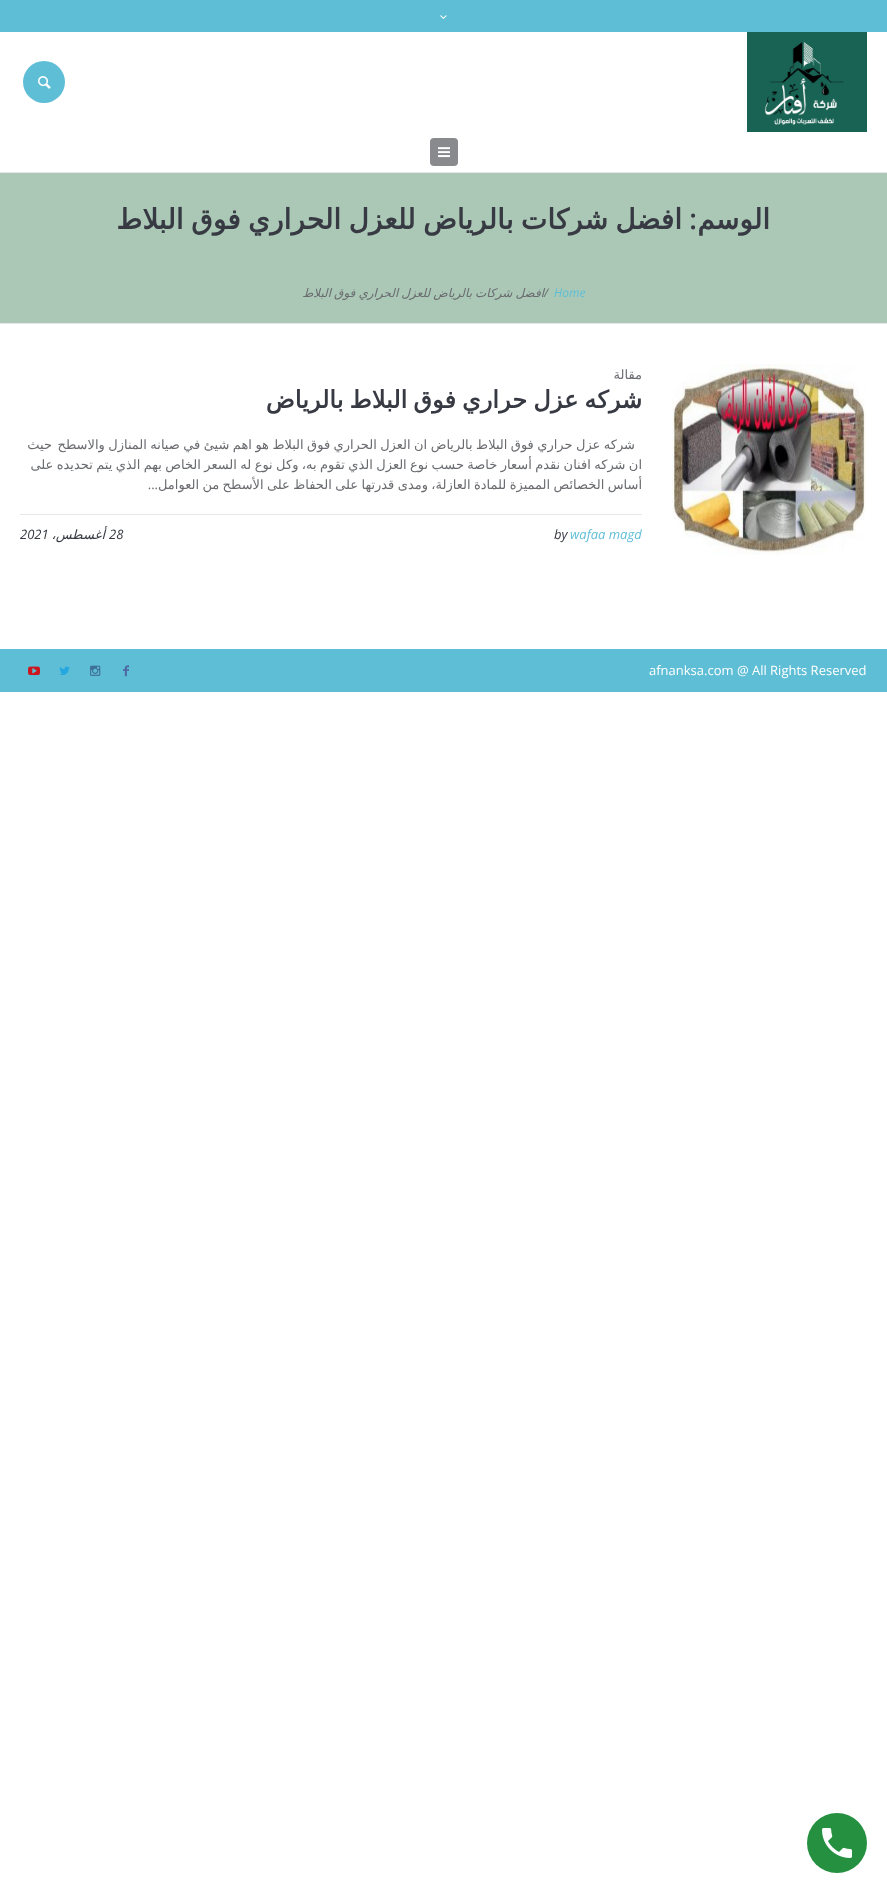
<!DOCTYPE html>
<meta charset="utf-8">
<style>body { margin: 0 } canvas { display: block }</style>
<canvas id="canvas" width="887" height="1893"></canvas>
<script type="module">
  const canvas = document.getElementById("canvas");
  const g = canvas.getContext("2d");
  g.miterLimit = 4;
  g.fontKerning = "normal";
  function drawText(s, x, y, [font, color]) {
    g.font = font;
    g.fillStyle = color;
    g.fillText(s, x, y);
  }
  function fillBox(x, y, w, h, color) {
    g.fillStyle = color;
    g.fillRect(x, y, w, h);
  }
  function fillRounded(x, y, w, h, r, color) {
    g.fillStyle = color;
    g.beginPath();
    g.roundRect(x, y, w, h, r);
    g.fill();
  }
  async function drawPicture(src, x, y, w, h) {
    const img = new Image();
    img.src = src;
    await img.decode();
    g.drawImage(img, x, y, w, h);
  }

  const s1 = ["bold 28px DejaVu Sans", "#373A42"];
  const s2 = ["600 28px Open Sans", "#373A42"];
  const s3 = ["italic 12px Open Sans", "#696B6F"];
  const s4 = ["italic 12px DejaVu Sans", "#696B6F"];
  const s5 = ["italic 12px Open Sans", "#5EBED6"];
  const s6 = ["13px DejaVu Sans", "#696B6F"];
  const s7 = ["bold 24px DejaVu Sans", "#373A42"];
  const s8 = ["13px Open Sans", "#696B6F"];
  const s9 = ["italic 13px Open Sans", "#5EBED6"];
  const s10 = ["italic 13px Open Sans", "#373A42"];
  const s11 = ["italic 13px DejaVu Sans", "#373A42"];
  const s12 = ["13px Open Sans", "#FFFFFF"];

  fillBox(0, 0, 887, 1893, "#FFFFFF");
  fillBox(0, 172, 887, 1, "#E7E7E7");
  fillBox(0, 0, 887, 32, "#5EBED6");
  await drawPicture("pic1.png", 440, 15, 7, 4);
  await drawPicture("pic2.png", 747, 32, 120, 100);
  g.beginPath();
  g.arc(44, 82, 21, 0, Math.PI * 2);
  g.fill();
  await drawPicture("pic3.png", 38, 76, 13, 13);
  fillRounded(430, 138, 28, 28, 4, "#888A8E");
  await drawPicture("pic4.png", 438, 147, 12, 11);
  fillBox(0, 323, 887, 1, "#E7E7E7");
  fillBox(0, 173, 887, 150, "#ABC8B7");
  g.direction = "rtl";
  drawText("الوسم", 770, 229, s1);
  drawText(":", 697, 229, s2);
  g.wordSpacing = "-1.5px";
  drawText("افضل شركات بالرياض للعزل الحراري فوق البلاط", 682, 229, s1);
  g.wordSpacing = "0px";
  g.direction = "ltr";
  drawText("/", 544, 297, s3);
  g.wordSpacing = "-0.75px";
  g.direction = "rtl";
  drawText("افضل شركات بالرياض للعزل الحراري فوق البلاط", 544, 297, s4);
  g.wordSpacing = "0px";
  g.direction = "ltr";
  drawText("Home", 554, 297, s5);
  await drawPicture("pic5.png", 672, 364, 194, 191);
  g.direction = "rtl";
  drawText("مقالة", 642, 379, s6);
  g.save();
  g.beginPath();
  g.rect(20, 364, 622, 180);
  g.clip();
  g.wordSpacing = "-1.5px";
  drawText("شركه عزل حراري فوق البلاط بالرياض", 642, 408, s7);
  g.restore();
  g.wordSpacing = "-0.7px";
  drawText("شركه عزل حراري فوق البلاط بالرياض ان العزل الحراري فوق البلاط هو اهم شيئ في صيانه المنازل والاسطح", 635, 449, s6);
  g.wordSpacing = "0px";
  drawText("حيث", 52, 449, s6);
  g.save();
  g.beginPath();
  g.rect(20, 434, 622, 80);
  g.clip();
  g.wordSpacing = "-0.75px";
  drawText("ان شركه افنان نقدم أسعار خاصة حسب نوع العزل الذي تقوم به، وكل نوع له السعر الخاص بهم الذي يتم تحديده على", 642, 469, s6);
  drawText("أساس الخصائص المميزة للمادة العازلة، ومدى قدرتها على الحفاظ على الأسطح من العوامل", 642, 489, s6);
  g.restore();
  drawText("...", 158, 489, s8);
  fillBox(20, 514, 622, 1, "#E7E7E7");
  g.direction = "ltr";
  drawText("wafaa magd", 570, 539, s9);
  drawText("by", 554, 539, s10);
  drawText("28", 109, 539, s10);
  g.direction = "rtl";
  drawText("أغسطس،", 105, 539, s11);
  g.direction = "ltr";
  drawText("2021", 20, 539, s10);
  fillBox(0, 649, 887, 43, "#5EBED6");
  drawText("afnanksa.com @ All Rights Reserved", 649, 675, s12);
  await drawPicture("pic6.png", 123, 665, 6, 12);
  await drawPicture("pic7.png", 90, 665, 11, 11);
  await drawPicture("pic8.png", 59, 666, 11, 9);
  await drawPicture("pic9.png", 28, 666, 12, 10);
  g.fillStyle = "#269041";
  g.beginPath();
  g.arc(837, 1843, 30, 0, Math.PI * 2);
  g.fill();
  await drawPicture("pic10.png", 822, 1828, 30, 30);
</script>
